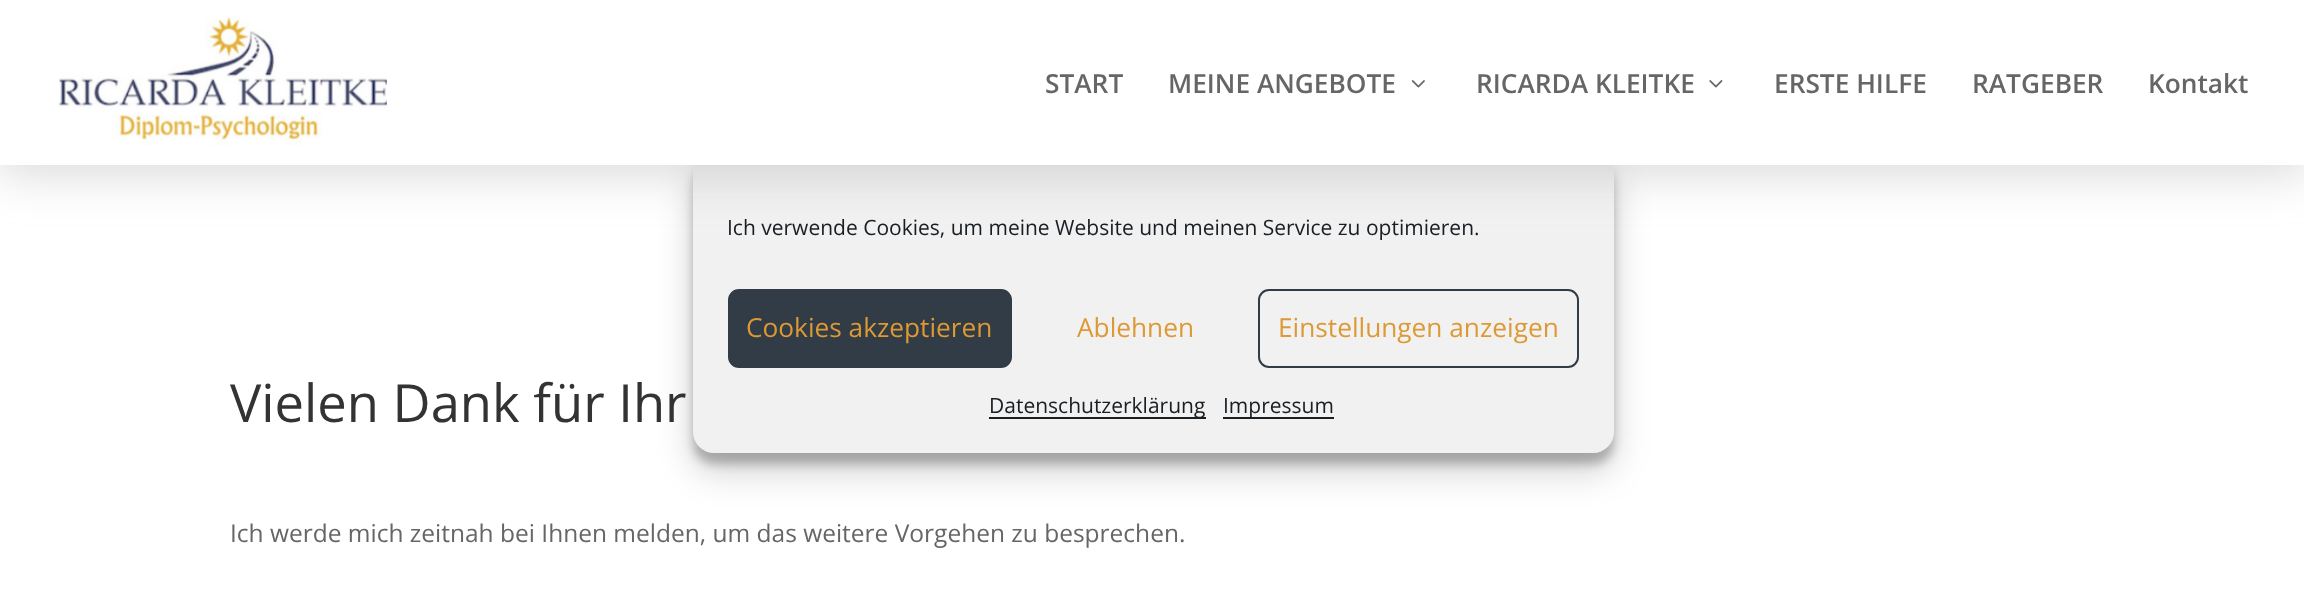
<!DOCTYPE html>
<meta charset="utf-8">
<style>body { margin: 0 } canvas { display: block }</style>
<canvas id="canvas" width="2304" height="603"></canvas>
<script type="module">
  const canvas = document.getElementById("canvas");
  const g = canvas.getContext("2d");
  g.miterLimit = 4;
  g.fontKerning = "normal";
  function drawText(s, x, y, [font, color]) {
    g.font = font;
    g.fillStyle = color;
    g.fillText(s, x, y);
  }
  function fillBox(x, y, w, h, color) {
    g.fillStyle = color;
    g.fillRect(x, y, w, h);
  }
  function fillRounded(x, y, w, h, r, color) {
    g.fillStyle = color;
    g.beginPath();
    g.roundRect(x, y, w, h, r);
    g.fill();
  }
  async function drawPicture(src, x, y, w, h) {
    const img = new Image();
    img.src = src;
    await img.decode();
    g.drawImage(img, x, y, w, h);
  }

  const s1 = ["600 26.25px Open Sans", "#666666"];
  const s2 = ["52.5px Open Sans", "#333333"];
  const s3 = ["24.5px Open Sans", "#666666"];
  const s4 = ["21px Open Sans", "#191E23"];
  const s5 = ["26.25px Open Sans", "#DD9933"];

  fillBox(0, 0, 2304, 603, "#FFFFFF");
  g.fillStyle = "rgba(0, 0, 0, 0.23)";
  g.filter = "blur(5px)";
  g.beginPath();
  g.roundRect(693, 163, 921, 301, 21);
  g.fill();
  g.filter = "none";
  g.fillStyle = "rgba(0, 0, 0, 0.19)";
  g.filter = "blur(17.5px)";
  g.beginPath();
  g.roundRect(693, 170, 921, 301, 21);
  g.fill();
  g.filter = "none";
  fillRounded(693, 152, 921, 301, 21, "#F1F1F1");
  g.fillStyle = "rgba(166, 166, 166, 0.4)";
  g.filter = "blur(23px)";
  g.beginPath();
  g.rect(-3, 4, 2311, 171);
  g.fill();
  g.filter = "none";
  fillBox(0, 0, 2304, 165, "#FFFFFF");
  await drawPicture("pic1.png", 58, 17, 329, 129);
  drawText("START", 1045, 93, s1);
  drawText("MEINE ANGEBOTE", 1168, 93, s1);
  await drawPicture("pic2.png", 1411, 80, 14, 8);
  drawText("RICARDA KLEITKE", 1476, 93, s1);
  await drawPicture("pic3.png", 1709, 80, 14, 8);
  drawText("ERSTE HILFE", 1774, 93, s1);
  drawText("RATGEBER", 1972, 93, s1);
  drawText("Kontakt", 2148, 93, s1);
  drawText("Vielen Dank für Ihr", 230, 422, s2);
  drawText("Ich werde mich zeitnah bei Ihnen melden, um das weitere Vorgehen zu besprechen.", 230, 542, s3);
  drawText("Ich verwende Cookies, um meine Website und meinen Service zu optimieren.", 727, 235, s4);
  g.fillStyle = "#313C46";
  g.beginPath();
  g.roundRect(729, 290, 282, 77, 10);
  g.fill();
  g.strokeStyle = "#313C46";
  g.lineWidth = 2;
  g.stroke();
  drawText("Cookies akzeptieren", 746, 337, s5);
  drawText("Ablehnen", 1077, 337, s5);
  g.beginPath();
  g.roundRect(1259, 290, 319, 77, 10);
  g.stroke();
  drawText("Einstellungen anzeigen", 1278, 337, s5);
  fillBox(989, 417, 217, 2, "#191E23");
  drawText("Datenschutzerklärung", 989, 413, s4);
  fillBox(1223, 417, 111, 2, "#191E23");
  drawText("Impressum", 1223, 413, s4);
</script>
